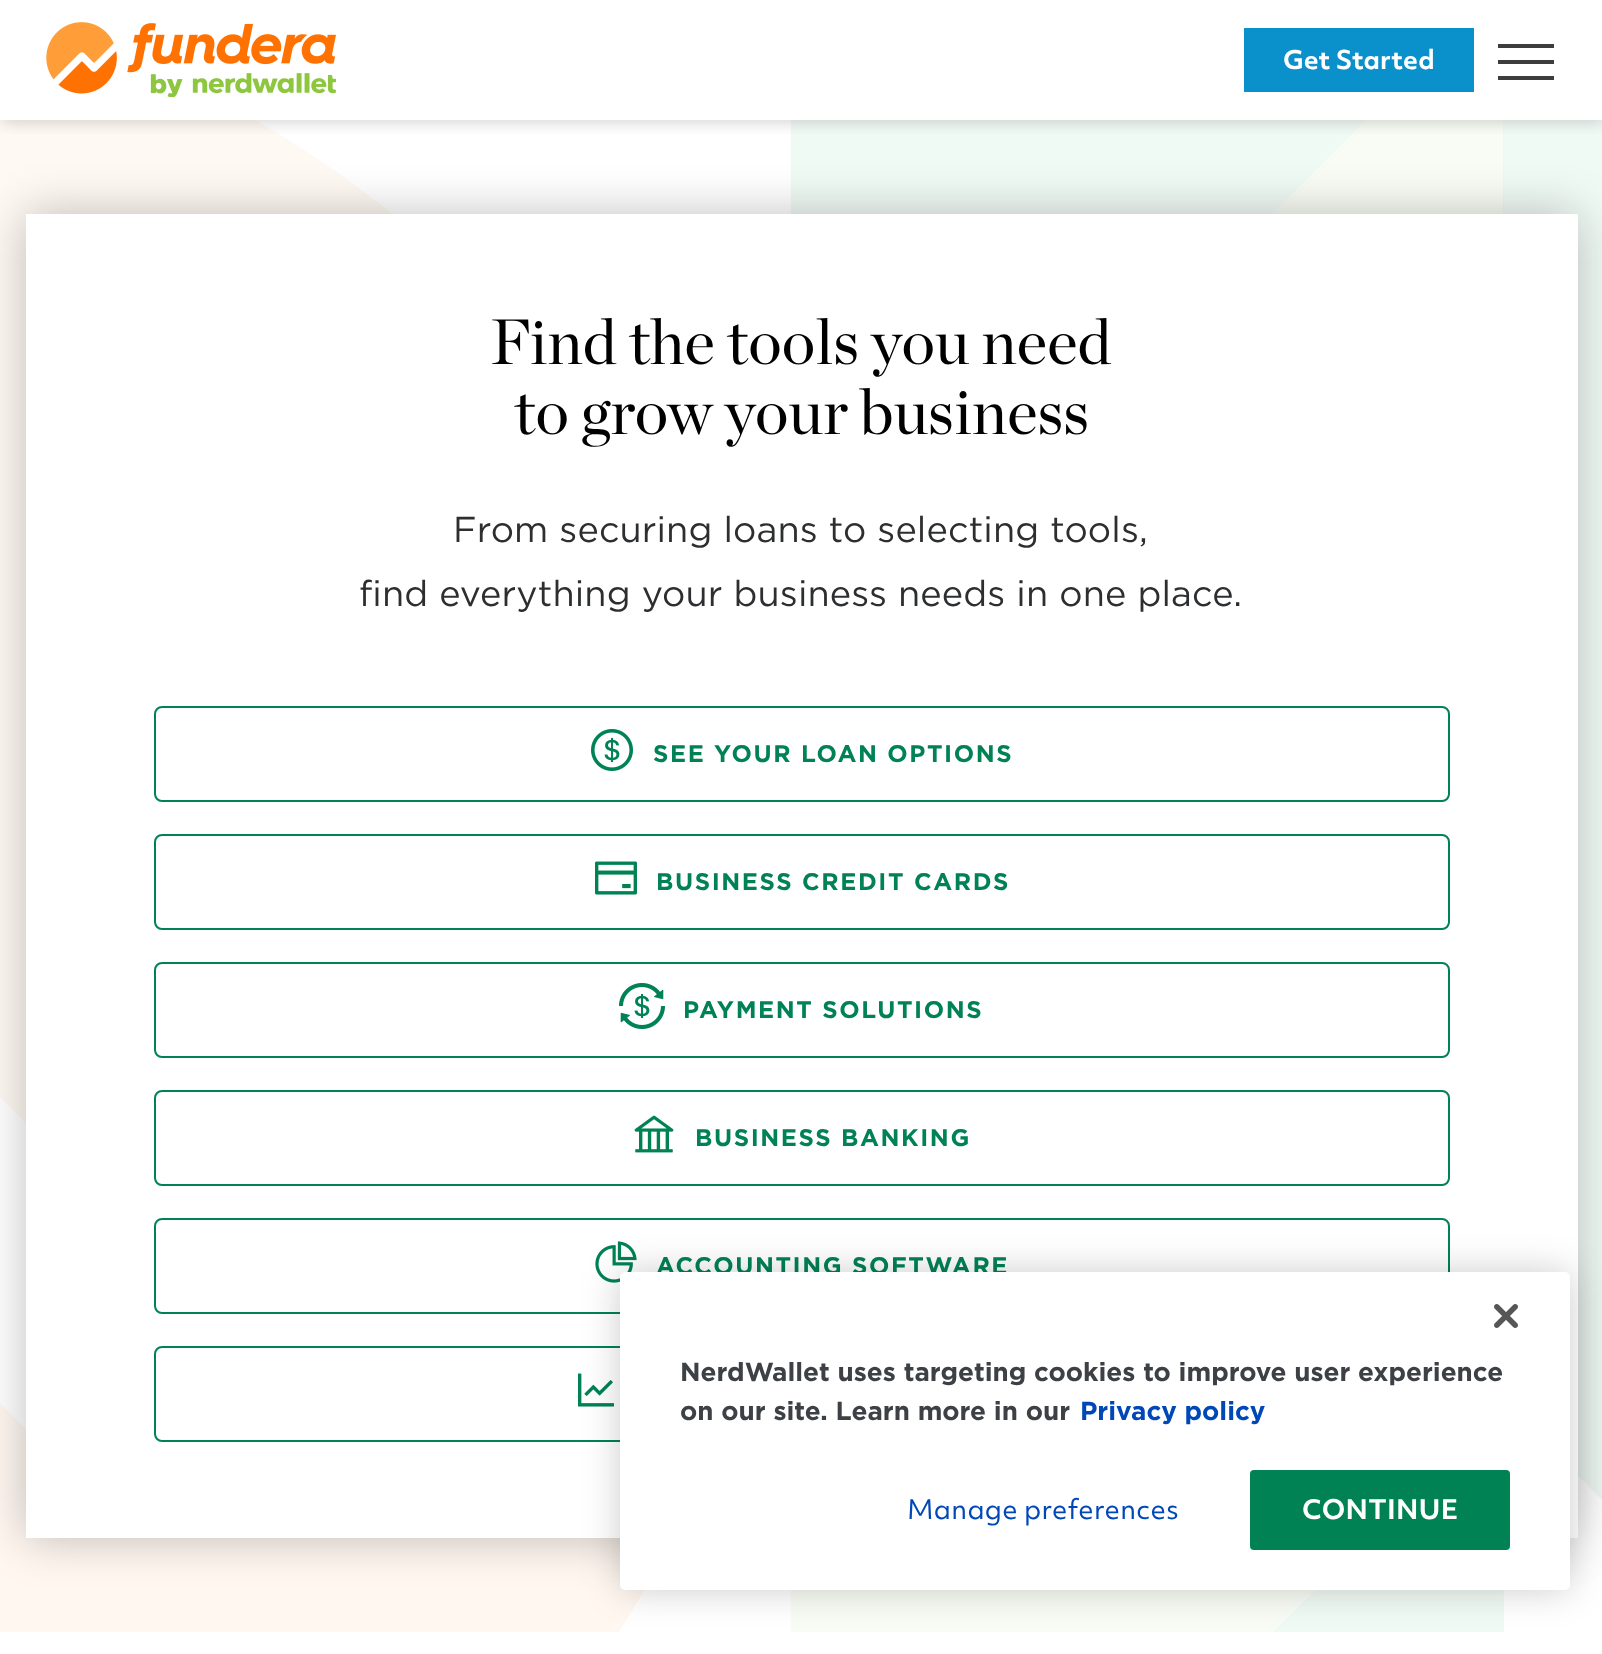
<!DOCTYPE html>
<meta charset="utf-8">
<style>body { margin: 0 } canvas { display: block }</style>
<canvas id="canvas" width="1602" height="1654"></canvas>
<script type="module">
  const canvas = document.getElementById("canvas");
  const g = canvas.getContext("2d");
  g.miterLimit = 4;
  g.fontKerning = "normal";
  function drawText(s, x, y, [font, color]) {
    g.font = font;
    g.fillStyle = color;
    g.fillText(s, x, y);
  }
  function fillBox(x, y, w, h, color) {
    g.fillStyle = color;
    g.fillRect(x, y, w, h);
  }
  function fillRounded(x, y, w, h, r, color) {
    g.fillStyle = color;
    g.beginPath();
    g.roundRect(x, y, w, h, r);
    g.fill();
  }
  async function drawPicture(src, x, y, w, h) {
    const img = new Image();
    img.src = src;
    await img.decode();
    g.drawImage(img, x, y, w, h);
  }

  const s1 = ["bold 25px 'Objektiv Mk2'", "#FFFFFF"];
  const s2 = ["64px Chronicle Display", "#000000"];
  const s3 = ["300 36px Gotham", "#2D2E30"];
  const s4 = ["24px Gotham", "#008255"];
  const s5 = ["26px Gotham", "#3D4045"];
  const s6 = ["26px Gotham", "#0048B8"];
  const s7 = ["26px 'Objektiv Mk2'", "#0048B8"];
  const s8 = ["bold 26px 'Objektiv Mk2'", "#FFFFFF"];

  fillBox(0, 0, 1602, 1654, "#FFFFFF");
  await drawPicture("pic2.png", 0, 120, 1602, 1512);
  g.save();
  g.beginPath();
  g.rect(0, 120, 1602, 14);
  g.clip();
  g.fillStyle = "rgba(102, 102, 102, 0.3)";
  g.filter = "blur(8px)";
  g.beginPath();
  g.rect(2, 2, 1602, 120);
  g.fill();
  g.filter = "none";
  g.restore();
  await drawPicture("pic1.png", 46, 22, 290, 75);
  fillBox(1244, 28, 230, 64, "#0A90CA");
  drawText("Get Started", 1283, 69, s1);
  fillBox(1498, 44, 56, 4, "#3D3D3B");
  fillBox(1498, 60, 56, 4, "#3D3D3B");
  fillBox(1498, 76, 56, 4, "#3D3D3B");
  g.fillStyle = "rgba(0, 0, 0, 0.25)";
  g.filter = "blur(24px)";
  g.beginPath();
  g.rect(26, 214, 1552, 1324);
  g.fill();
  g.filter = "none";
  fillBox(26, 214, 1552, 1324, "#FFFFFF");
  g.letterSpacing = "0.1px";
  drawText("Find the tools you need", 490, 364, s2);
  drawText("to grow your business", 514, 434, s2);
  g.letterSpacing = "0.15px";
  drawText("From securing loans to selecting tools,", 453, 542, s3);
  drawText("find everything your business needs in one place.", 359, 606, s3);
  g.beginPath();
  g.roundRect(155, 707, 1294, 94, 7);
  g.strokeStyle = "#008255";
  g.lineWidth = 2;
  g.stroke();
  await drawPicture("pic3.png", 591, 729, 42, 42);
  g.letterSpacing = "1.6px";
  drawText("SEE YOUR LOAN OPTIONS", 653, 762, s4);
  g.beginPath();
  g.roundRect(155, 835, 1294, 94, 7);
  g.stroke();
  await drawPicture("pic4.png", 595, 861, 42, 34);
  drawText("BUSINESS CREDIT CARDS", 656, 890, s4);
  g.beginPath();
  g.roundRect(155, 963, 1294, 94, 7);
  g.stroke();
  await drawPicture("pic5.png", 619, 983, 46, 46);
  drawText("PAYMENT SOLUTIONS", 683, 1018, s4);
  g.beginPath();
  g.roundRect(155, 1091, 1294, 94, 7);
  g.stroke();
  await drawPicture("pic6.png", 634, 1115, 40, 38);
  drawText("BUSINESS BANKING", 695, 1146, s4);
  g.beginPath();
  g.roundRect(155, 1219, 1294, 94, 7);
  g.stroke();
  await drawPicture("pic7.png", 595, 1241, 42, 42);
  drawText("ACCOUNTING SOFTWARE", 656, 1274, s4);
  g.beginPath();
  g.roundRect(155, 1347, 1294, 94, 7);
  g.stroke();
  await drawPicture("pic8.png", 578, 1373, 36, 34);
  g.fillStyle = "rgba(0, 0, 0, 0.2)";
  g.filter = "blur(18px)";
  g.beginPath();
  g.roundRect(620, 1272, 950, 318, 5);
  g.fill();
  g.filter = "none";
  fillRounded(620, 1272, 950, 318, 5, "#FFFFFF");
  await drawPicture("pic9.png", 1494, 1304, 24, 24);
  g.letterSpacing = "0px";
  drawText("NerdWallet uses targeting cookies to improve user experience", 680, 1381, s5);
  drawText("on our site. Learn more in our", 680, 1420, s5);
  drawText("Privacy policy", 1080, 1420, s6);
  g.letterSpacing = "0.25px";
  drawText("Manage preferences", 907, 1519, s7);
  fillRounded(1250, 1470, 260, 80, 4, "#008254");
  drawText("CONTINUE", 1302, 1519, s8);
</script>
